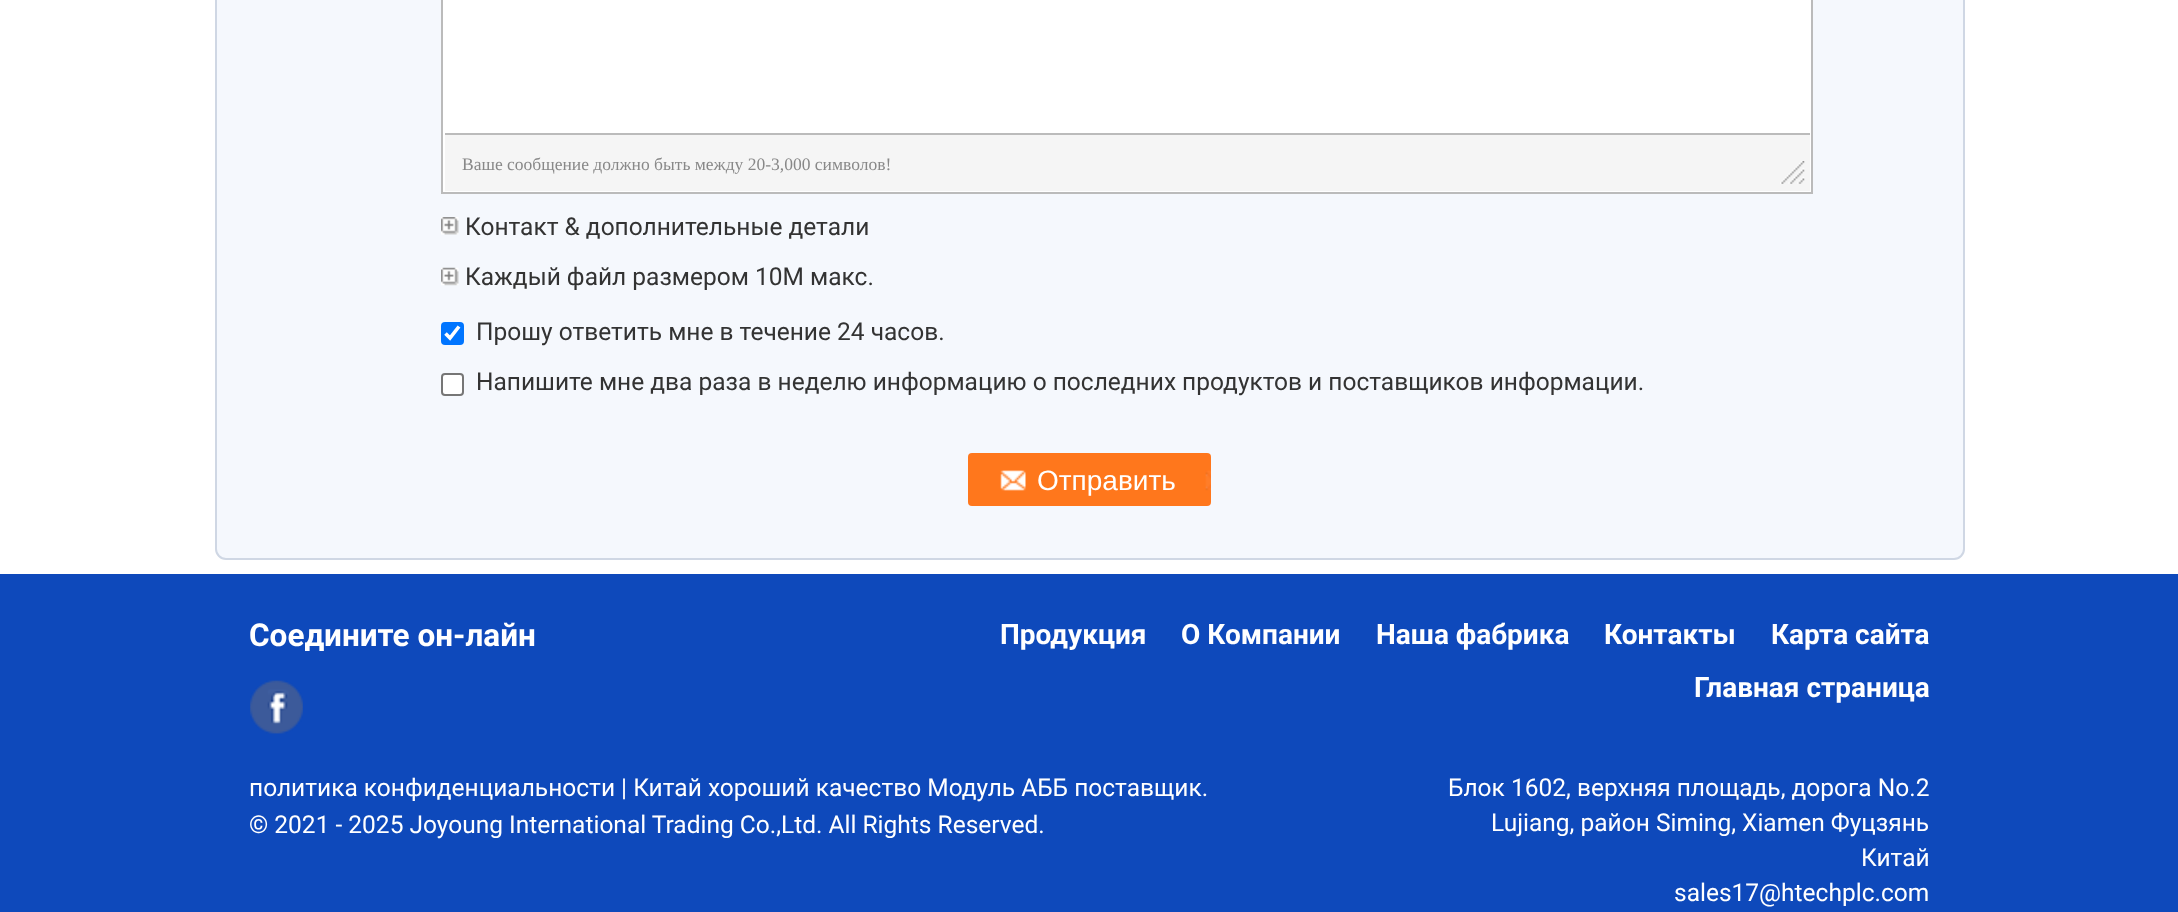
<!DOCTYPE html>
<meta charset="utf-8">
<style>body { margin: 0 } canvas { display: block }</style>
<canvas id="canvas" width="2178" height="912"></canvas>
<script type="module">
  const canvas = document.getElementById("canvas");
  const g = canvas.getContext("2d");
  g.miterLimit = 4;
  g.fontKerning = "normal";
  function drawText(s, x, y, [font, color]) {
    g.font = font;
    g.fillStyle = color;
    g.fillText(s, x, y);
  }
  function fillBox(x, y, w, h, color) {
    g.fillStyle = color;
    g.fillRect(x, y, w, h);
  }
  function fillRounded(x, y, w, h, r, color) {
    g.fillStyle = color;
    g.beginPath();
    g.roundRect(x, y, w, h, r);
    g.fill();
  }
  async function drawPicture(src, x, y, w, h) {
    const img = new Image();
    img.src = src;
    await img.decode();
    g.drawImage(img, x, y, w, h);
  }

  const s1 = ["17.5px Liberation Serif", "#888888"];
  const s2 = ["24.5px Roboto", "#333333"];
  const s3 = ["28px Liberation Sans", "#FFFFFF"];
  const s4 = ["bold 31.5px Roboto", "#FFFFFF"];
  const s5 = ["bold 28px Roboto", "#FFFFFF"];
  const s6 = ["24.5px Roboto", "#FFFFFF"];

  fillBox(0, 0, 2178, 912, "#FFFFFF");
  g.fillStyle = "#F5F8FD";
  g.beginPath();
  g.roundRect(216, -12, 1748, 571, 10);
  g.fill();
  g.strokeStyle = "#CFD7E4";
  g.lineWidth = 2;
  g.stroke();
  g.fillStyle = "#FFFFFF";
  g.beginPath();
  g.rect(442, -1, 1370, 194);
  g.fill();
  g.strokeStyle = "#BBBBBB";
  g.stroke();
  fillBox(445, 135, 1365, 56, "#F5F5F5");
  fillBox(445, 133, 1365, 2, "#BBBBBB");
  drawText("Ваше сообщение должно быть между 20-3,000 символов!", 462, 170, s1);
  await drawPicture("pic1.png", 1780, 161, 25, 23);
  await drawPicture("pic2.png", 441, 217, 18, 18);
  drawText("Контакт & дополнительные детали", 465, 235, s2);
  await drawPicture("pic3.png", 441, 267, 18, 19);
  drawText("Каждый файл размером 10M макс.", 465, 285, s2);
  fillRounded(441, 322, 23, 23, 4, "#0075FF");
  g.beginPath();
  g.moveTo(445.5, 333.5);
  g.lineTo(450, 338);
  g.lineTo(459, 326.5);
  g.strokeStyle = "#FFFFFF";
  g.lineWidth = 3.6;
  g.stroke();
  drawText("Прошу ответить мне в течение 24 часов.", 476, 340, s2);
  g.fillStyle = "#FFFFFF";
  g.beginPath();
  g.roundRect(442, 374, 21, 21, 3);
  g.fill();
  g.strokeStyle = "#767676";
  g.lineWidth = 2;
  g.stroke();
  drawText("Напишите мне два раза в неделю информацию о последних продуктов и поставщиков информации.", 476, 390, s2);
  fillRounded(968, 453, 243, 53, 4, "#FF771C");
  await drawPicture("pic4.png", 1000, 470, 211, 21);
  drawText("Отправить", 1037, 490, s3);
  fillBox(0, 574, 2178, 338, "#0E49BB");
  drawText("Соедините он-лайн", 249, 646, s4);
  await drawPicture("pic5.png", 250, 680, 53, 54);
  drawText("Продукция", 1000, 644, s5);
  drawText("О Компании", 1181, 644, s5);
  drawText("Наша фабрика", 1376, 644, s5);
  drawText("Контакты", 1604, 644, s5);
  drawText("Карта сайта", 1771, 644, s5);
  drawText("Главная страница", 1694, 697, s5);
  drawText("политика конфиденциальности | Китай хороший качество Модуль АББ поставщик.", 249, 796, s6);
  drawText("© 2021 - 2025 Joyoung International Trading Co.,Ltd. All Rights Reserved.", 249, 833, s6);
  drawText("Блок 1602, верхняя площадь, дорога No.2", 1448, 796, s6);
  drawText("Lujiang, район Siming, Xiamen Фуцзянь", 1491, 831, s6);
  drawText("Китай", 1861, 866, s6);
  drawText("sales17@htechplc.com", 1674, 901, s6);
</script>
